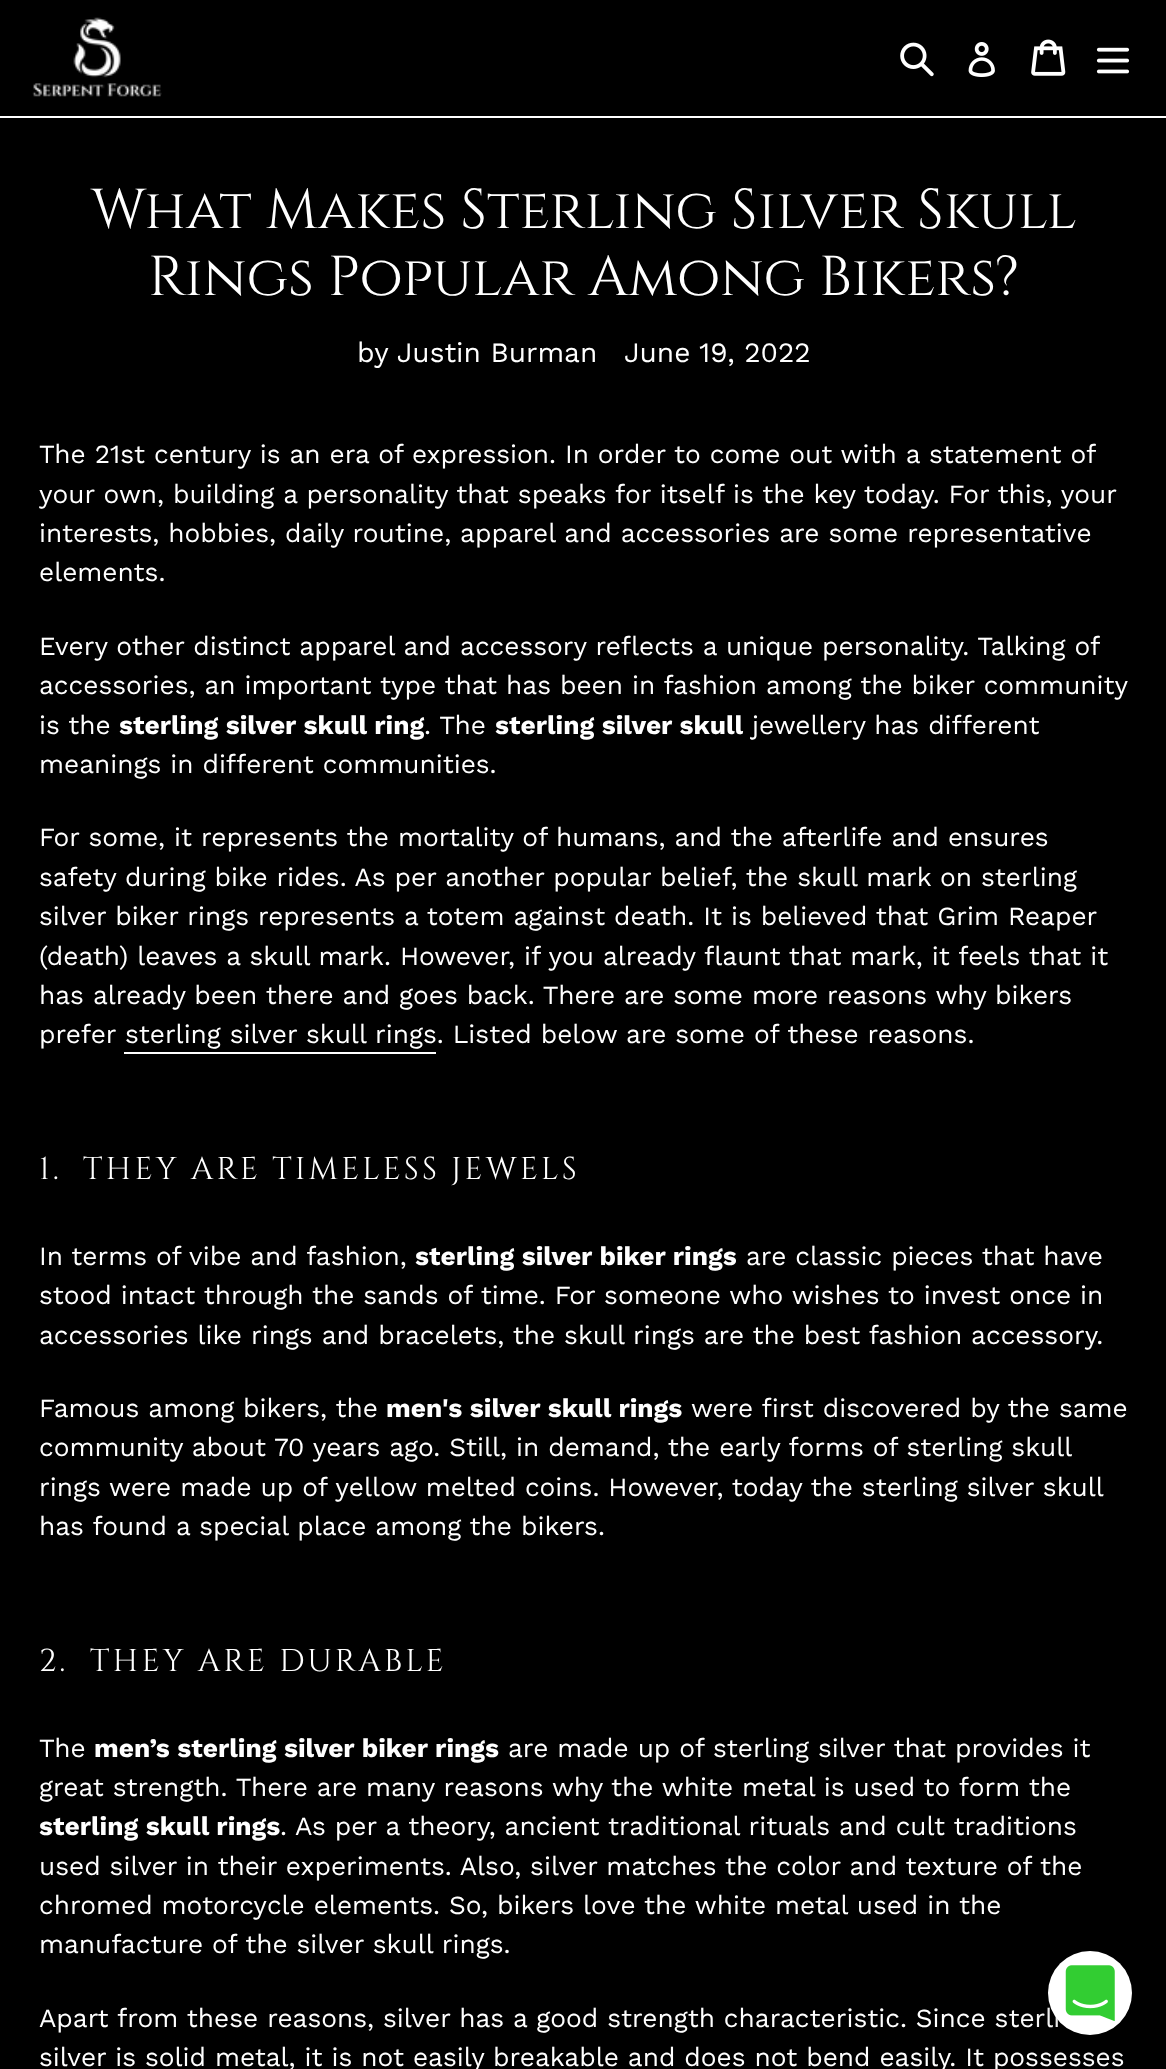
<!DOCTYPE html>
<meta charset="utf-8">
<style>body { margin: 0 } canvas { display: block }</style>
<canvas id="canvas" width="1166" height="2069"></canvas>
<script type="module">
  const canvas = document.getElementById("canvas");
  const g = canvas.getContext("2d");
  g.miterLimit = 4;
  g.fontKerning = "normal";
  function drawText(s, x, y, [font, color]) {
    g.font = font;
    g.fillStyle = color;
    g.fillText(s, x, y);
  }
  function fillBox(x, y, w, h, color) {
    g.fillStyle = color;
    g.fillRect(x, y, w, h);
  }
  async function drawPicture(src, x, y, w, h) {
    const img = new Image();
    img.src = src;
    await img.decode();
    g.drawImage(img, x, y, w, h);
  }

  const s1 = ["56px Cinzel", "#FFFFFF"];
  const s2 = ["28px Work Sans", "#FFFFFF"];
  const s3 = ["26.25px Work Sans", "#FFFFFF"];
  const s4 = ["bold 26.25px Work Sans", "#FFFFFF"];
  const s5 = ["31.5px Cinzel", "#FFFFFF"];

  fillBox(0, 0, 1166, 2069, "#000000");
  fillBox(0, 116, 1166, 2, "#FFFFFF");
  await drawPicture("pic1.png", 32, 17, 130, 80);
  await drawPicture("pic2.png", 900, 42, 34, 35);
  await drawPicture("pic3.png", 968, 42, 27, 35);
  await drawPicture("pic4.png", 1031, 39, 35, 37);
  await drawPicture("pic5.png", 1096, 47, 34, 27);
  drawText("What Makes Sterling Silver Skull", 91, 228, s1);
  drawText("Rings Popular Among Bikers?", 148, 295, s1);
  drawText("by Justin Burman", 357, 362, s2);
  drawText("June 19, 2022", 624, 362, s2);
  drawText("The 21st century is an era of expression. In order to come out with a statement of", 39, 463, s3);
  drawText("your own, building a personality that speaks for itself is the key today. For this, your", 39, 503, s3);
  drawText("interests, hobbies, daily routine, apparel and accessories are some representative", 39, 542, s3);
  drawText("elements.", 39, 581, s3);
  drawText("Every other distinct apparel and accessory reflects a unique personality. Talking of", 39, 655, s3);
  drawText("accessories, an important type that has been in fashion among the biker community", 39, 694, s3);
  drawText("is the", 39, 734, s3);
  drawText("sterling silver skull ring", 119, 734, s4);
  drawText(". The", 424, 734, s3);
  drawText("sterling silver skull", 495, 734, s4);
  drawText("jewellery has different", 752, 734, s3);
  drawText("meanings in different communities.", 39, 773, s3);
  drawText("For some, it represents the mortality of humans, and the afterlife and ensures", 39, 846, s3);
  drawText("safety during bike rides. As per another popular belief, the skull mark on sterling", 39, 886, s3);
  drawText("silver biker rings represents a totem against death. It is believed that Grim Reaper", 39, 925, s3);
  drawText("(death) leaves a skull mark. However, if you already flaunt that mark, it feels that it", 39, 965, s3);
  drawText("has already been there and goes back. There are some more reasons why bikers", 39, 1004, s3);
  drawText("prefer sterling silver skull rings. Listed below are some of these reasons.", 39, 1043, s3);
  fillBox(124, 1052, 312, 2, "#FFFFFF");
  g.letterSpacing = "3.15px";
  drawText("1.", 39, 1179, s5);
  drawText("THEY ARE TIMELESS JEWELS", 83, 1179, s5);
  g.letterSpacing = "0px";
  drawText("In terms of vibe and fashion,", 39, 1265, s3);
  drawText("sterling silver biker rings", 415, 1265, s4);
  drawText("are classic pieces that have", 746, 1265, s3);
  drawText("stood intact through the sands of time. For someone who wishes to invest once in", 39, 1304, s3);
  drawText("accessories like rings and bracelets, the skull rings are the best fashion accessory.", 39, 1344, s3);
  drawText("Famous among bikers, the", 39, 1417, s3);
  drawText("men's silver skull rings", 386, 1417, s4);
  drawText("were first discovered by the same", 691, 1417, s3);
  drawText("community about 70 years ago. Still, in demand, the early forms of sterling skull", 39, 1456, s3);
  drawText("rings were made up of yellow melted coins. However, today the sterling silver skull", 39, 1496, s3);
  drawText("has found a special place among the bikers.", 39, 1535, s3);
  g.letterSpacing = "3.15px";
  drawText("2.", 39, 1671, s5);
  drawText("THEY ARE DURABLE", 90, 1671, s5);
  g.letterSpacing = "0px";
  drawText("The", 39, 1757, s3);
  drawText("men’s sterling silver biker rings", 94, 1757, s4);
  drawText("are made up of sterling silver that provides it", 508, 1757, s3);
  drawText("great strength. There are many reasons why the white metal is used to form the", 39, 1796, s3);
  drawText("sterling skull rings", 39, 1835, s4);
  drawText(". As per a theory, ancient traditional rituals and cult traditions", 280, 1835, s3);
  drawText("used silver in their experiments. Also, silver matches the color and texture of the", 39, 1875, s3);
  drawText("chromed motorcycle elements. So, bikers love the white metal used in the", 39, 1914, s3);
  drawText("manufacture of the silver skull rings.", 39, 1953, s3);
  drawText("Apart from these reasons, silver has a good strength characteristic. Since sterli", 39, 2027, s3);
  drawText("silver is solid metal, it is not easily breakable and does not bend easily. It possesses", 39, 2066, s3);
  g.fillStyle = "rgba(0, 0, 0, 0.16)";
  g.filter = "blur(28px)";
  g.beginPath();
  g.roundRect(1048, 1955, 84, 84, 42);
  g.fill();
  g.filter = "none";
  g.fillStyle = "rgba(0, 0, 0, 0.06)";
  g.filter = "blur(5px)";
  g.beginPath();
  g.roundRect(1048, 1953, 84, 84, 42);
  g.fill();
  g.filter = "none";
  g.fillStyle = "#FFFFFF";
  g.beginPath();
  g.arc(1090, 1993, 42, 0, Math.PI * 2);
  g.fill();
  await drawPicture("pic6.png", 1065, 1965, 50, 56);
</script>
